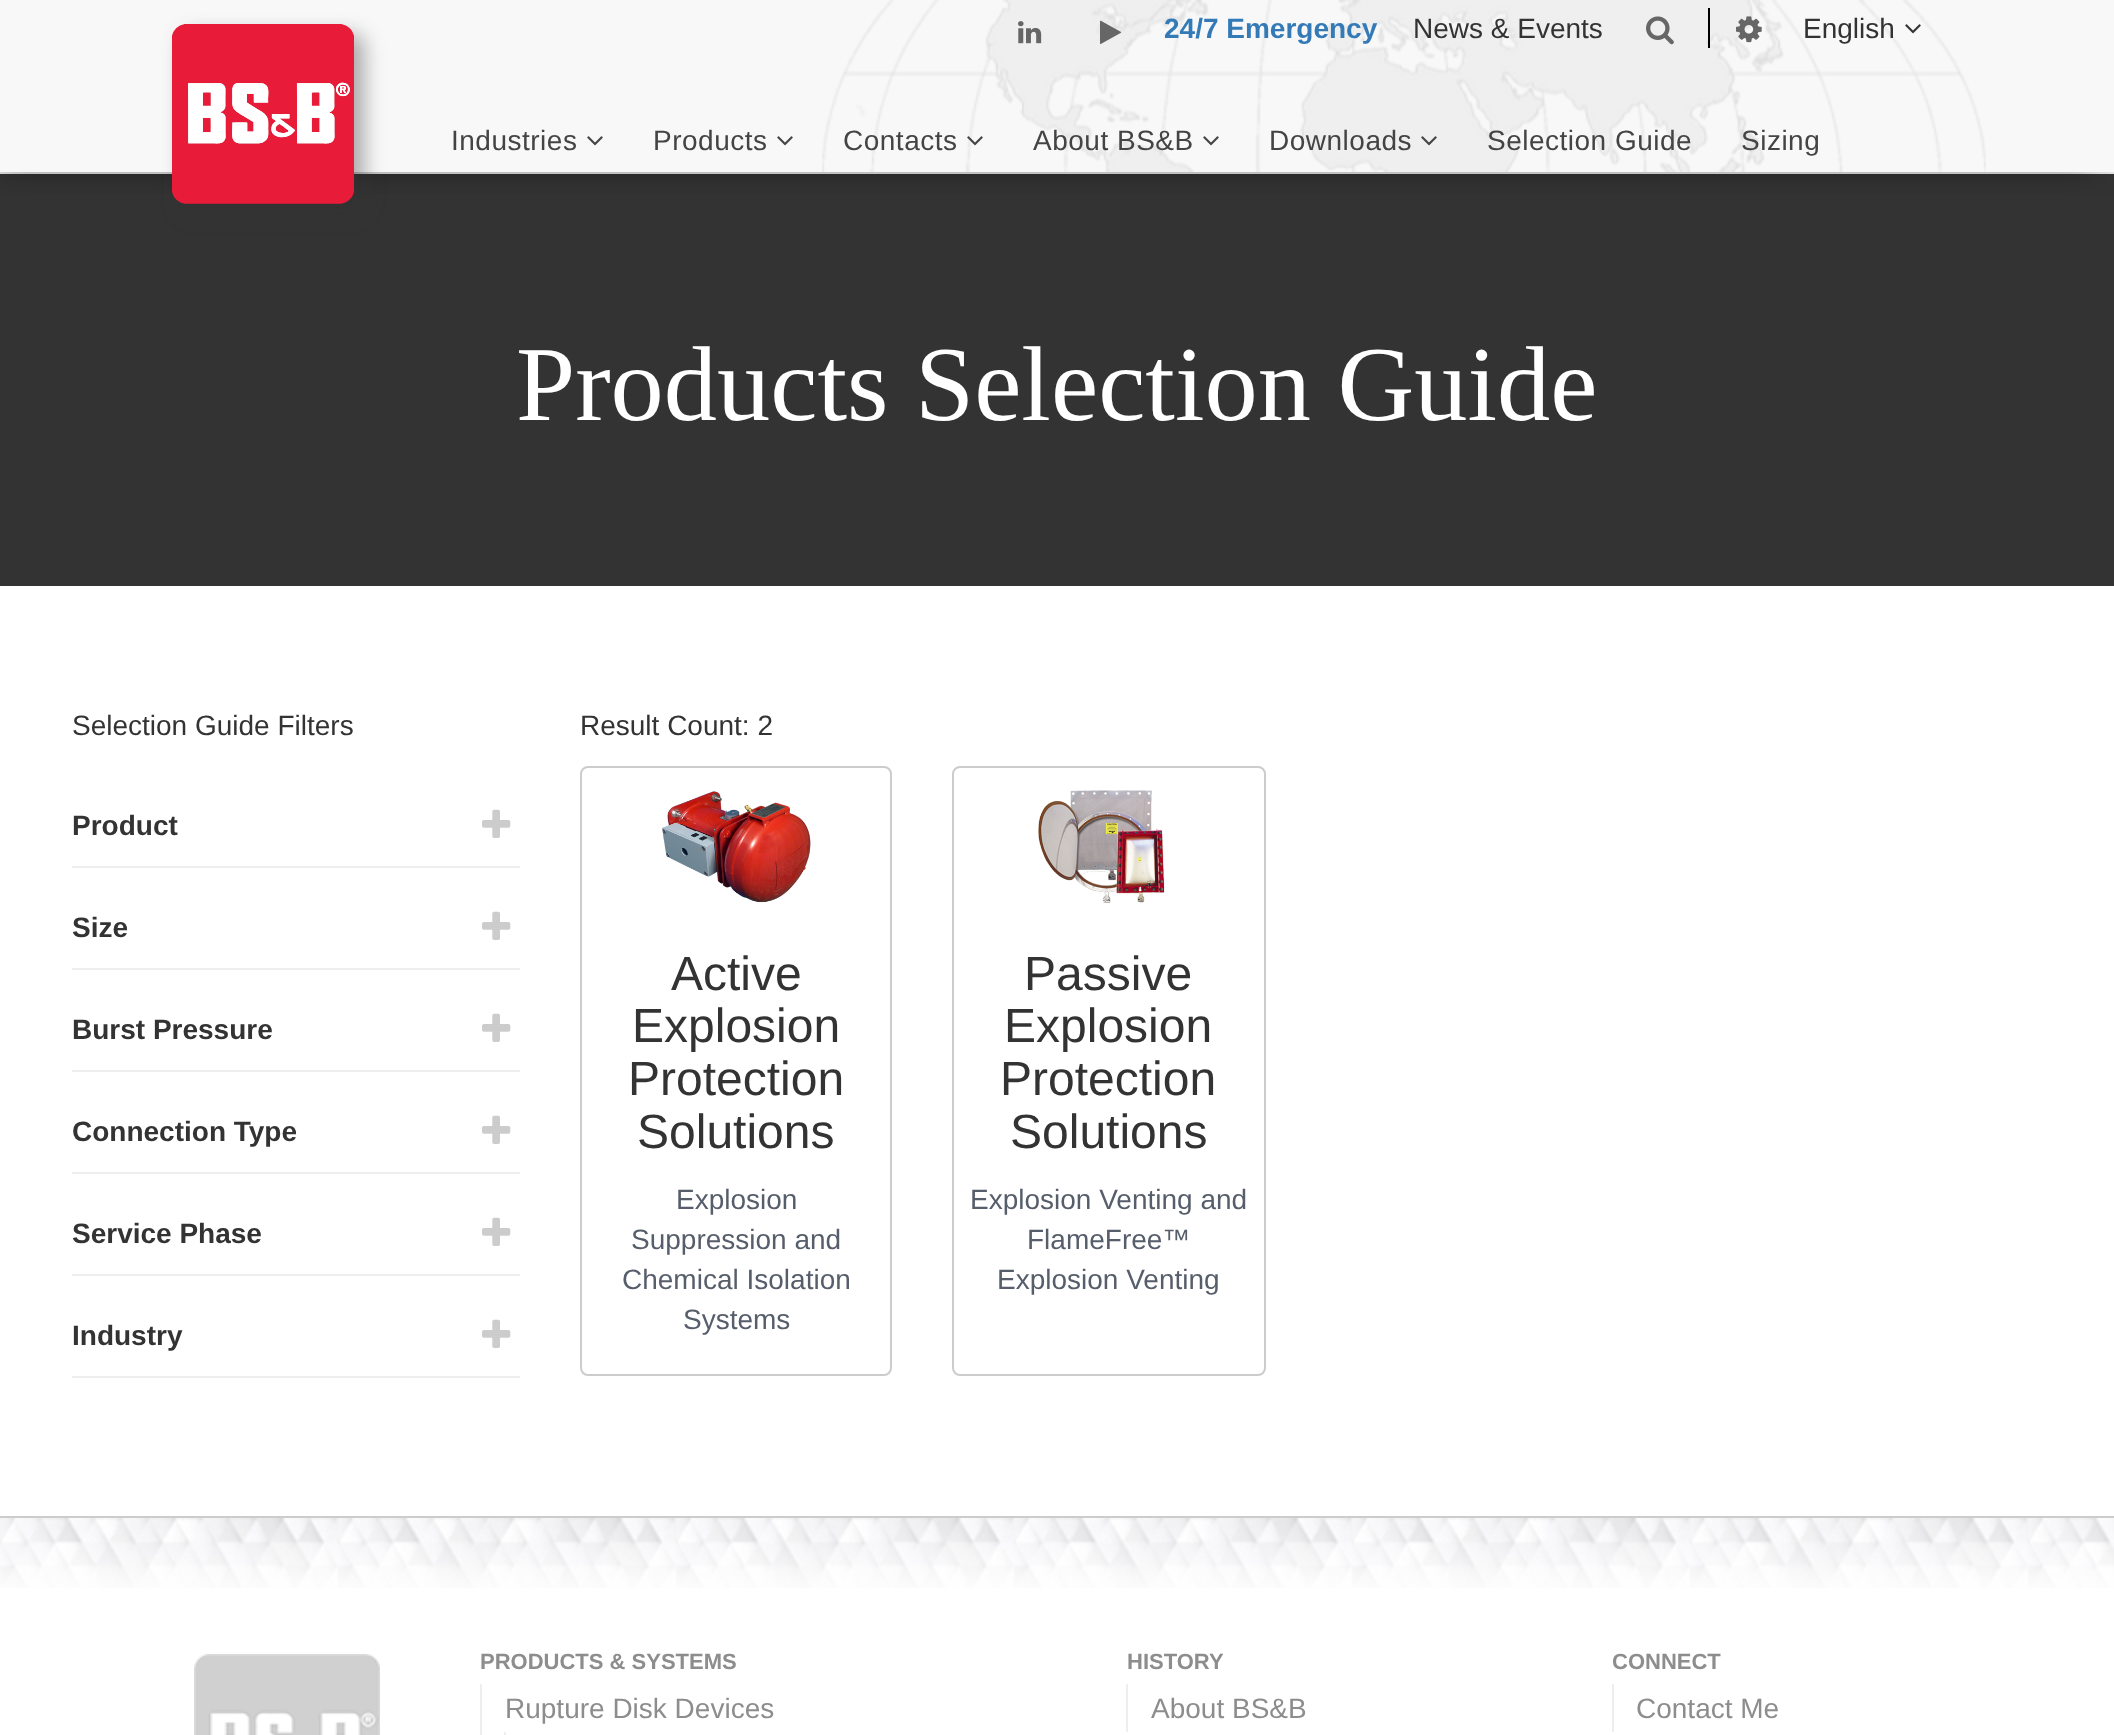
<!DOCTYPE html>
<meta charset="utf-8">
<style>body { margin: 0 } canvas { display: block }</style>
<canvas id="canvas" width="2114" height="1735"></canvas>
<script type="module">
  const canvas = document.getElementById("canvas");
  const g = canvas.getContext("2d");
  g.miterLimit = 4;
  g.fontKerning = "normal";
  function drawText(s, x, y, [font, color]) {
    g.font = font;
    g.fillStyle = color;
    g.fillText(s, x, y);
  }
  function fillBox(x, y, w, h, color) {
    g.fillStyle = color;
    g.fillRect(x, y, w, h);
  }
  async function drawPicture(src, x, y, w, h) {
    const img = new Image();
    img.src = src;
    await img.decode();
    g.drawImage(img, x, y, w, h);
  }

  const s1 = ["bold 28px Liberation Sans", "#337AB7"];
  const s2 = ["28px Liberation Sans", "#333333"];
  const s3 = ["28px Liberation Sans", "#444444"];
  const s4 = ["106.4px Liberation Serif", "#FFFFFF"];
  const s5 = ["bold 28px Liberation Sans", "#333333"];
  const s6 = ["48px Liberation Sans", "#333333"];
  const s7 = ["28px Liberation Sans", "#575E6B"];
  const s8 = ["bold 22px Liberation Sans", "#8D8D8D"];
  const s9 = ["28px Liberation Sans", "#8D8D8D"];

  fillBox(0, 0, 2114, 1735, "#FFFFFF");
  fillBox(0, 0, 2114, 172, "#F8F8F8");
  fillBox(0, 172, 2114, 2, "#E7E7E7");
  fillBox(0, 174, 2114, 412, "#333333");
  g.save();
  g.beginPath();
  g.rect(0, 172, 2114, 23);
  g.clip();
  g.fillStyle = "rgba(0, 0, 0, 0.5)";
  g.filter = "blur(16.5px)";
  g.beginPath();
  g.rect(0, 16, 2094, 150);
  g.fill();
  g.filter = "none";
  g.restore();
  await drawPicture("pic1.png", 822, 0, 1164, 172);
  await drawPicture("pic2.png", 1018, 21, 24, 23);
  await drawPicture("pic3.png", 1100, 20, 22, 24);
  drawText("24/7 Emergency", 1164, 38, s1);
  drawText("News & Events", 1413, 38, s2);
  await drawPicture("pic4.png", 1646, 16, 28, 29);
  fillBox(1708, 8, 2, 40, "#000000");
  await drawPicture("pic5.png", 1736, 16, 26, 27);
  drawText("English", 1803, 38, s2);
  await drawPicture("pic6.png", 1905, 24, 16, 10);
  g.fillStyle = "rgba(50, 50, 50, 0.4)";
  g.filter = "blur(10px)";
  g.beginPath();
  g.roundRect(182, 34, 182, 180, 12);
  g.fill();
  g.filter = "none";
  await drawPicture("pic7.png", 172, 24, 182, 180);
  g.letterSpacing = "0.5px";
  drawText("Industries", 451, 150, s3);
  await drawPicture("pic8.png", 587, 136, 16, 10);
  drawText("Products", 653, 150, s3);
  await drawPicture("pic8.png", 777, 136, 16, 10);
  drawText("Contacts", 843, 150, s3);
  await drawPicture("pic9.png", 967, 136, 16, 10);
  drawText("About BS&B", 1033, 150, s3);
  await drawPicture("pic8.png", 1203, 136, 16, 10);
  drawText("Downloads", 1269, 150, s3);
  await drawPicture("pic10.png", 1421, 136, 16, 10);
  drawText("Selection Guide", 1487, 150, s3);
  drawText("Sizing", 1741, 150, s3);
  g.letterSpacing = "0px";
  drawText("Products Selection Guide", 516, 420, s4);
  drawText("Selection Guide Filters", 72, 735, s2);
  fillBox(72, 866, 448, 2, "#EEEEEE");
  drawText("Product", 72, 835, s5);
  await drawPicture("pic11.png", 482, 809, 29, 29);
  fillBox(72, 968, 448, 2, "#EEEEEE");
  drawText("Size", 72, 937, s5);
  await drawPicture("pic11.png", 482, 911, 29, 29);
  fillBox(72, 1070, 448, 2, "#EEEEEE");
  drawText("Burst Pressure", 72, 1039, s5);
  await drawPicture("pic11.png", 482, 1013, 29, 29);
  fillBox(72, 1172, 448, 2, "#EEEEEE");
  drawText("Connection Type", 72, 1141, s5);
  await drawPicture("pic11.png", 482, 1115, 29, 29);
  fillBox(72, 1274, 448, 2, "#EEEEEE");
  drawText("Service Phase", 72, 1243, s5);
  await drawPicture("pic11.png", 482, 1217, 29, 29);
  fillBox(72, 1376, 448, 2, "#EEEEEE");
  drawText("Industry", 72, 1345, s5);
  await drawPicture("pic11.png", 482, 1319, 29, 29);
  drawText("Result Count: 2", 580, 735, s2);
  g.beginPath();
  g.roundRect(581, 767, 310, 608, 7);
  g.strokeStyle = "#CCCCCC";
  g.lineWidth = 2;
  g.stroke();
  await drawPicture("pic12.png", 662, 791, 149, 112);
  drawText("Active", 671, 990, s6);
  drawText("Explosion", 632, 1042, s6);
  drawText("Protection", 628, 1095, s6);
  drawText("Solutions", 637, 1148, s6);
  drawText("Explosion", 676, 1209, s7);
  drawText("Suppression and", 631, 1249, s7);
  drawText("Chemical Isolation", 622, 1289, s7);
  drawText("Systems", 683, 1329, s7);
  g.beginPath();
  g.roundRect(953, 767, 312, 608, 7);
  g.stroke();
  await drawPicture("pic13.png", 1038, 790, 127, 113);
  drawText("Passive", 1024, 990, s6);
  drawText("Explosion", 1004, 1042, s6);
  drawText("Protection", 1000, 1095, s6);
  drawText("Solutions", 1010, 1148, s6);
  drawText("Explosion Venting and", 970, 1209, s7);
  drawText("FlameFree™", 1027, 1249, s7);
  drawText("Explosion Venting", 997, 1289, s7);
  await drawPicture("pic14.png", 0, 1518, 2114, 70);
  fillBox(0, 1516, 2114, 2, "#CCCCCC");
  await drawPicture("pic15.png", 194, 1654, 186, 81);
  drawText("PRODUCTS & SYSTEMS", 480, 1669, s8);
  fillBox(480, 1684, 2, 51, "#EEEEEE");
  drawText("Rupture Disk Devices", 505, 1718, s9);
  fillBox(504, 1732, 2, 3, "#EEEEEE");
  drawText("HISTORY", 1127, 1669, s8);
  fillBox(1126, 1684, 2, 48, "#EEEEEE");
  drawText("About BS&B", 1151, 1718, s9);
  drawText("CONNECT", 1612, 1669, s8);
  fillBox(1612, 1684, 2, 48, "#EEEEEE");
  drawText("Contact Me", 1636, 1718, s9);
</script>
